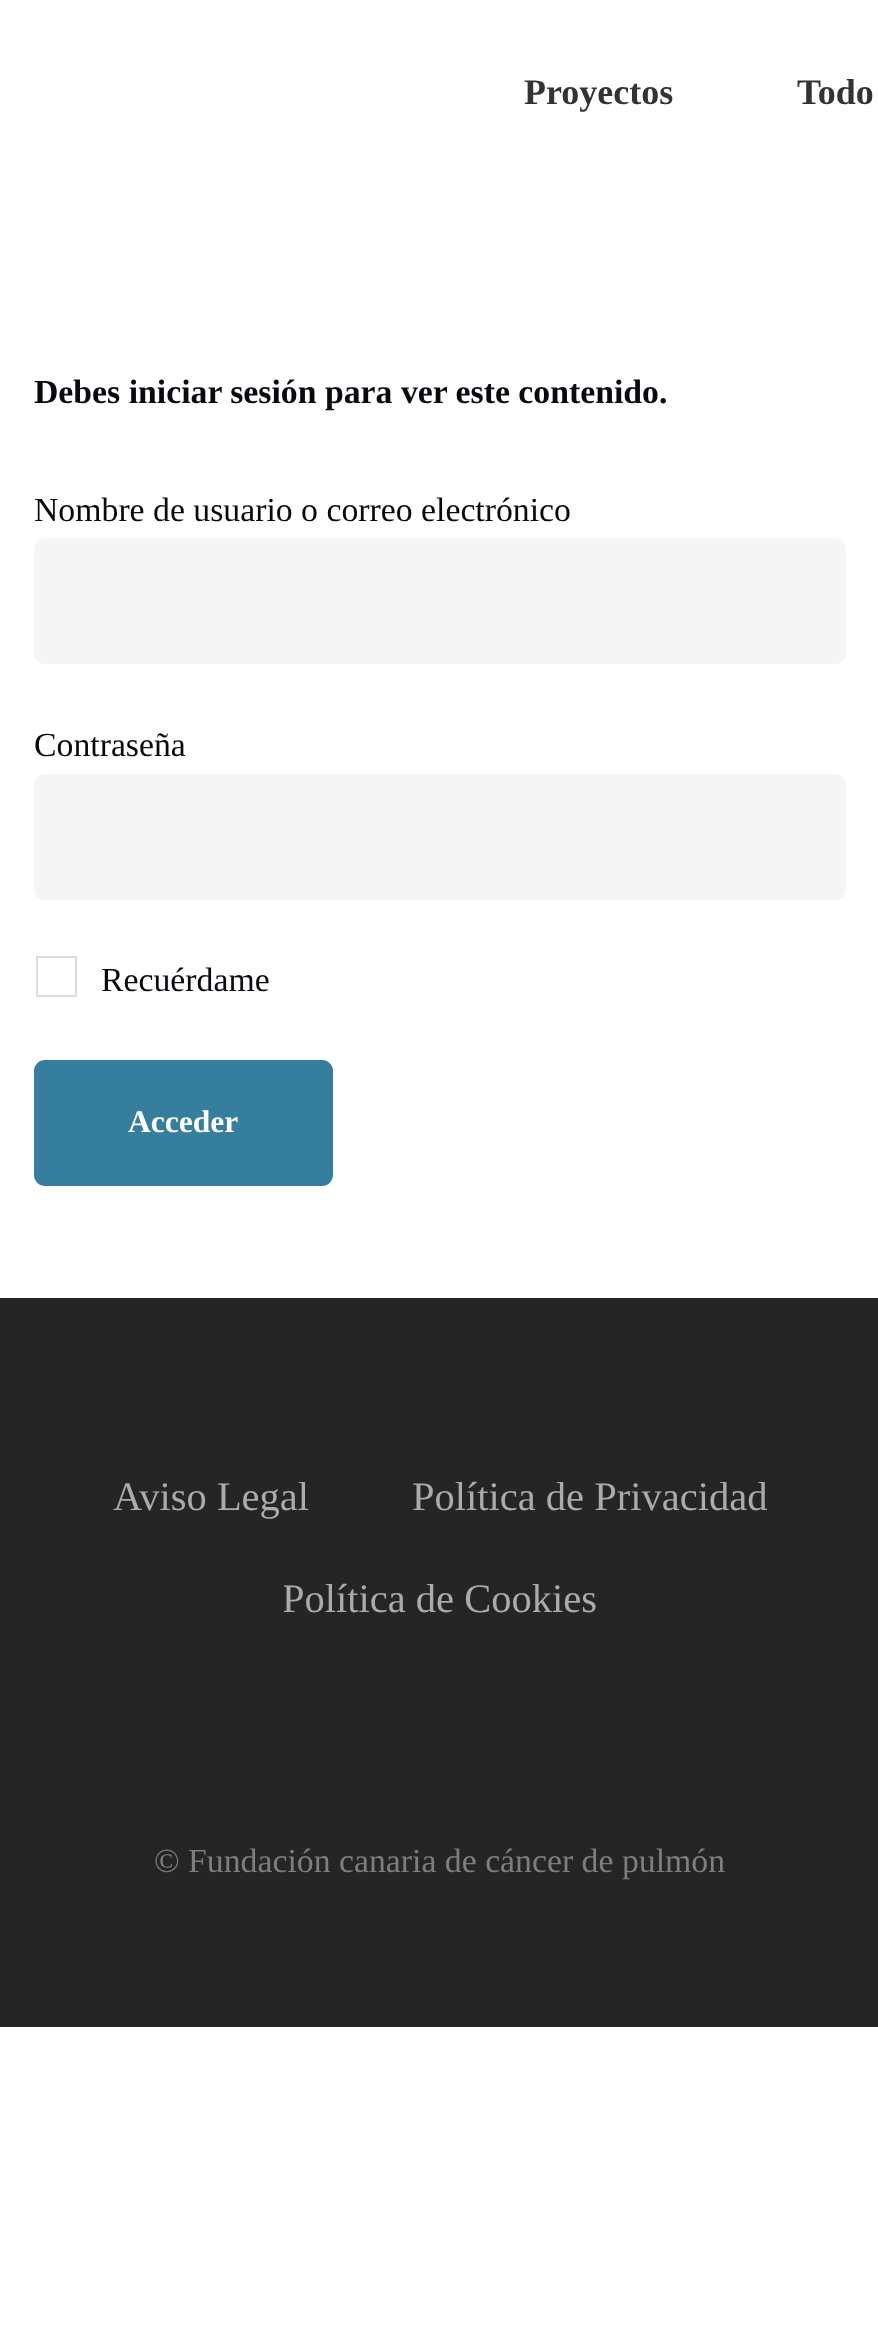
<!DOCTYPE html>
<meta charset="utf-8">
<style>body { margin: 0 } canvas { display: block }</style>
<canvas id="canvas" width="878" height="2336"></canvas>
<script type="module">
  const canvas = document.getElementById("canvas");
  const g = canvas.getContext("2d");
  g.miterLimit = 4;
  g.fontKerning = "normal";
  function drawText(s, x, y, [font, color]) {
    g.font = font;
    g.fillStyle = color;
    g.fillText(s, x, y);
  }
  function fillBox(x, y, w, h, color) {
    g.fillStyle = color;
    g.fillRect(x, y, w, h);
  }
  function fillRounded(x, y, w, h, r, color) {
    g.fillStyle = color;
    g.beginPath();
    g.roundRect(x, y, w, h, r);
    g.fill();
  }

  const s1 = ["bold 36px Liberation Serif", "#333333"];
  const s2 = ["bold 33.75px Liberation Serif", "#090A0F"];
  const s3 = ["33.75px Liberation Serif", "#090A0F"];
  const s4 = ["bold 31.5px Liberation Serif", "#FFFFFF"];
  const s5 = ["40.5px Liberation Serif", "#ABABAB"];
  const s6 = ["33.75px Liberation Serif", "#7E7E7E"];

  fillBox(0, 0, 878, 2336, "#FFFFFF");
  drawText("Proyectos", 524, 104, s1);
  drawText("Todo", 797, 104, s1);
  drawText("Debes iniciar sesión para ver este contenido.", 34, 403, s2);
  drawText("Nombre de usuario o correo electrónico", 34, 521, s3);
  fillRounded(34, 538, 812, 126, 11, "#F5F5F5");
  drawText("Contraseña", 34, 756, s3);
  fillRounded(34, 774, 812, 126, 11, "#F5F5F5");
  g.strokeStyle = "#DDDDDD";
  g.lineWidth = 2;
  g.strokeRect(37, 957, 39, 39);
  drawText("Recuérdame", 101, 991, s3);
  g.fillStyle = "#367E9E";
  g.beginPath();
  g.roundRect(35, 1061, 297, 124, 10);
  g.fill();
  g.strokeStyle = "#367E9E";
  g.stroke();
  drawText("Acceder", 128, 1132, s4);
  fillBox(0, 1298, 878, 729, "#252525");
  drawText("Aviso Legal", 113, 1510, s5);
  drawText("Política de Privacidad", 412, 1510, s5);
  g.save();
  g.beginPath();
  g.rect(284, 1566, 312, 70);
  g.clip();
  drawText("Política de Cookies", 282, 1612, s5);
  g.restore();
  drawText("© Fundación canaria de cáncer de pulmón", 154, 1872, s6);
</script>
